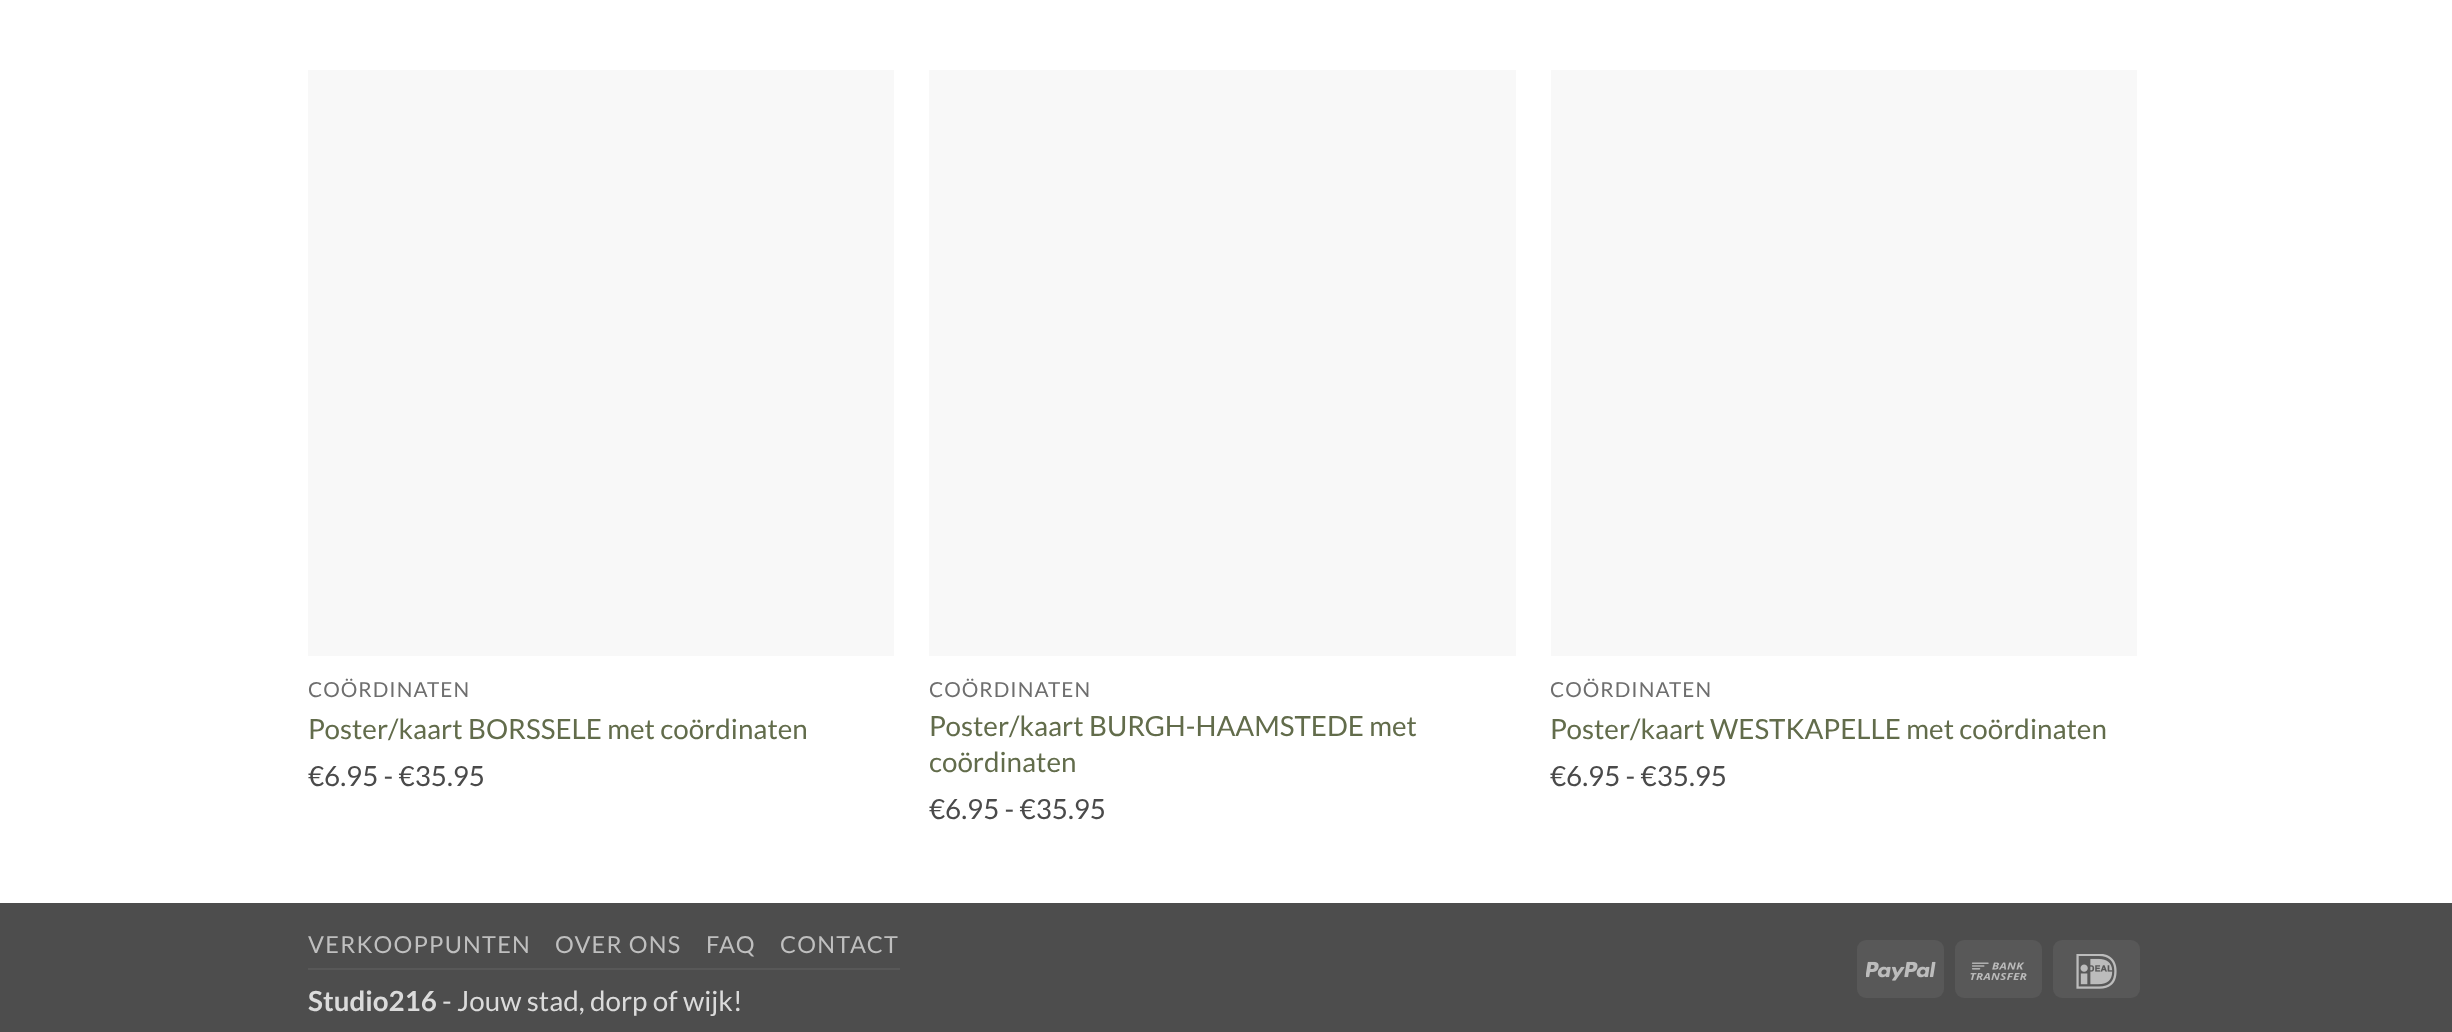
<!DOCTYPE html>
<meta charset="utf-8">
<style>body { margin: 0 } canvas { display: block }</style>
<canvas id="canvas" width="2452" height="1032"></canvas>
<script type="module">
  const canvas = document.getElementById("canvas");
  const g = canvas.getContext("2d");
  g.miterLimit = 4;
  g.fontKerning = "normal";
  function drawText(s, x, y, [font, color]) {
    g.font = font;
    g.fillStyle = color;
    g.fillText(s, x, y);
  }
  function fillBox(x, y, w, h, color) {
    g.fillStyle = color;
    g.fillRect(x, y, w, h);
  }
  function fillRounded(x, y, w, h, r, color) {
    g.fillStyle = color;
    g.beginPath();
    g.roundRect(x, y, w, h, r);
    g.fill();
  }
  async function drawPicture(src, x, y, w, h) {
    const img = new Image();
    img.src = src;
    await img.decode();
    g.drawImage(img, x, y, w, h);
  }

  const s1 = ["20.75px Lato", "#6E6E6E"];
  const s2 = ["27.75px Lato", "#626C4B"];
  const s3 = ["27.75px Lato", "#4A4A4A"];
  const s4 = ["23.5px Lato", "#BFBFBF"];
  const s5 = ["bold 27.75px Lato", "#DBDBDB"];
  const s6 = ["27.75px Lato", "#DBDBDB"];

  fillBox(0, 0, 2452, 1032, "#FFFFFF");
  fillBox(308, 70, 586, 586, "#F8F8F8");
  g.letterSpacing = "1px";
  drawText("COÖRDINATEN", 308, 697, s1);
  g.letterSpacing = "0px";
  drawText("Poster/kaart BORSSELE met coördinaten", 308, 739, s2);
  drawText("€6.95 - €35.95", 308, 786, s3);
  fillBox(929, 70, 587, 586, "#F8F8F8");
  g.letterSpacing = "1px";
  drawText("COÖRDINATEN", 929, 697, s1);
  g.letterSpacing = "0px";
  drawText("Poster/kaart BURGH-HAAMSTEDE met", 929, 736, s2);
  drawText("coördinaten", 929, 772, s2);
  drawText("€6.95 - €35.95", 929, 819, s3);
  fillBox(1551, 70, 586, 586, "#F8F8F8");
  g.letterSpacing = "1px";
  drawText("COÖRDINATEN", 1550, 697, s1);
  g.letterSpacing = "0px";
  drawText("Poster/kaart WESTKAPELLE met coördinaten", 1550, 739, s2);
  drawText("€6.95 - €35.95", 1550, 786, s3);
  fillBox(0, 903, 2452, 129, "#4D4D4D");
  fillBox(308, 968, 592, 2, "#585858");
  g.letterSpacing = "1.25px";
  drawText("VERKOOPPUNTEN", 308, 953, s4);
  drawText("OVER ONS", 555, 953, s4);
  drawText("FAQ", 706, 953, s4);
  drawText("CONTACT", 780, 953, s4);
  g.letterSpacing = "0px";
  drawText("Studio216", 308, 1011, s5);
  drawText("- Jouw stad, dorp of wijk!", 442, 1011, s6);
  fillRounded(1857, 940, 87, 58, 9, "#585858");
  await drawPicture("pic1.png", 1866, 961, 70, 20);
  fillRounded(1955, 940, 87, 58, 9, "#585858");
  await drawPicture("pic2.png", 1970, 962, 57, 18);
  fillRounded(2053, 940, 87, 58, 9, "#585858");
  await drawPicture("pic3.png", 2076, 954, 41, 35);
</script>
